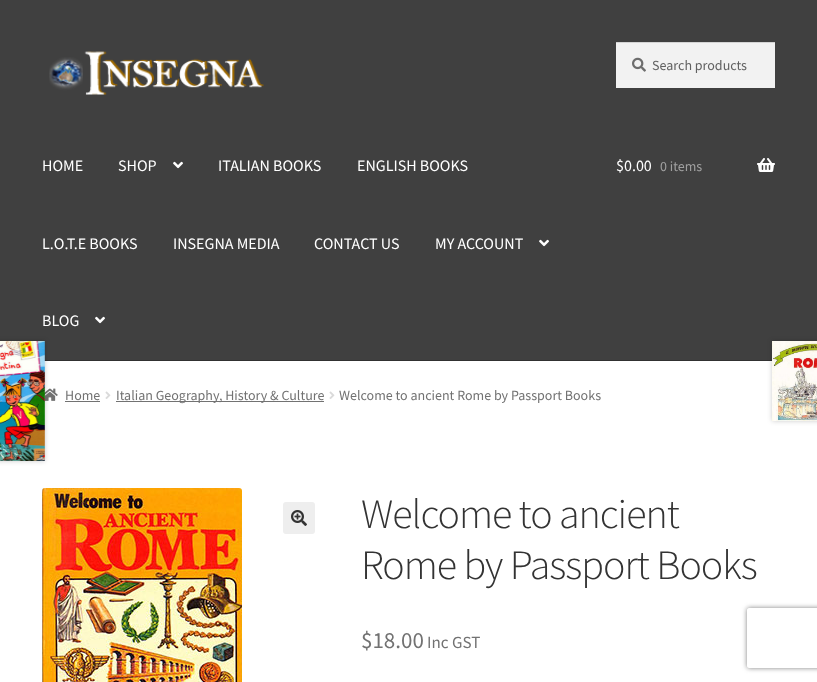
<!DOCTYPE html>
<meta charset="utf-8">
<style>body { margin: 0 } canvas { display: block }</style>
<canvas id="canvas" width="817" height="682"></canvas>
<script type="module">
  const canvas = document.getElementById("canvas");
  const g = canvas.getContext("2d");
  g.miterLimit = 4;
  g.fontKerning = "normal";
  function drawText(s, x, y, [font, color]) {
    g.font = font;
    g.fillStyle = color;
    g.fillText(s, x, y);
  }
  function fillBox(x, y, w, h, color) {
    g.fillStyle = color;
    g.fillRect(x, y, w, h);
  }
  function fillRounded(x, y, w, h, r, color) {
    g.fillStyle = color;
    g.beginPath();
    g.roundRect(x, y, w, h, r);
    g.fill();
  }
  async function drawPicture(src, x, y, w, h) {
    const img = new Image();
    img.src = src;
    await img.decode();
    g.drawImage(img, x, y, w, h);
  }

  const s1 = ["14px Source Sans Pro", "#616161"];
  const s2 = ["16px Source Sans Pro", "#FFFFFF"];
  const s3 = ["14px Source Sans Pro", "#A0A0A0"];
  const s4 = ["14px Source Sans Pro", "#727272"];
  const s5 = ["300 41.9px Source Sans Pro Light", "#333333"];
  const s6 = ["23px Source Sans Pro", "#727272"];
  const s7 = ["17px Source Sans Pro", "#727272"];

  fillBox(0, 0, 817, 682, "#FFFFFF");
  fillBox(0, 0, 817, 360, "#404040");
  fillBox(44, 360, 728, 1, "#313131");
  await drawPicture("pic1.png", 49, 51, 215, 44);
  fillBox(616, 43, 159, 45, "#F2F2F2");
  await drawPicture("pic2.png", 632, 57, 14, 15);
  fillBox(616, 42, 159, 1, "#D4D4D4");
  drawText("Search products", 652, 70, s1);
  drawText("HOME", 42, 171, s2);
  drawText("SHOP", 118, 171, s2);
  await drawPicture("pic3.png", 173, 161, 10, 8);
  drawText("ITALIAN BOOKS", 218, 171, s2);
  drawText("ENGLISH BOOKS", 357, 171, s2);
  drawText("L.O.T.E BOOKS", 42, 249, s2);
  drawText("INSEGNA MEDIA", 173, 249, s2);
  drawText("CONTACT US", 314, 249, s2);
  drawText("MY ACCOUNT", 435, 249, s2);
  await drawPicture("pic3.png", 539, 239, 10, 8);
  drawText("BLOG", 42, 326, s2);
  await drawPicture("pic3.png", 95, 316, 10, 8);
  drawText("$0.00", 616, 171, s2);
  drawText("0 items", 660, 171, s3);
  await drawPicture("pic4.png", 757, 158, 18, 14);
  await drawPicture("pic5.png", 44, 388, 14, 13);
  drawText("Home", 65, 400, s4);
  fillBox(65, 401, 35, 1, "#727272");
  await drawPicture("pic6.png", 105, 391, 6, 8);
  fillBox(116, 401, 208, 1, "#727272");
  drawText("Italian Geography, History & Culture", 116, 400, s4);
  await drawPicture("pic6.png", 329, 391, 6, 8);
  drawText("Welcome to ancient Rome by Passport Books", 339, 400, s4);
  g.fillStyle = "rgba(0, 0, 0, 0.2)";
  g.filter = "blur(2.5px)";
  g.beginPath();
  g.rect(-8, 341, 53, 120);
  g.fill();
  g.filter = "none";
  await drawPicture("pic7.png", 0, 341, 45, 120);
  g.filter = "blur(2.5px)";
  g.beginPath();
  g.rect(772, 341, 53, 80);
  g.fill();
  g.filter = "none";
  await drawPicture("pic8.png", 772, 341, 45, 80);
  await drawPicture("pic9.png", 42, 488, 200, 194);
  fillRounded(283, 502, 32, 32, 3, "#EEEEEE");
  await drawPicture("pic10.png", 291, 510, 16, 16);
  g.letterSpacing = "-1px";
  drawText("Welcome to ancient", 361, 528, s5);
  drawText("Rome by Passport Books", 361, 579, s5);
  g.letterSpacing = "0px";
  drawText("$18.00", 361, 648, s6);
  drawText("Inc GST", 427, 648, s7);
  g.save();
  g.beginPath();
  g.moveTo(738, 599);
  g.lineTo(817, 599);
  g.lineTo(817, 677);
  g.lineTo(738, 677);
  g.closePath();
  g.moveTo(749, 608);
  g.lineTo(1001, 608);
  g.bezierCurveTo(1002, 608, 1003, 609, 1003, 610);
  g.lineTo(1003, 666);
  g.bezierCurveTo(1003, 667, 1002, 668, 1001, 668);
  g.lineTo(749, 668);
  g.bezierCurveTo(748, 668, 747, 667, 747, 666);
  g.lineTo(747, 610);
  g.bezierCurveTo(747, 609, 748, 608, 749, 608);
  g.closePath();
  g.clip("evenodd");
  g.fillStyle = "#808080";
  g.filter = "blur(2.5px)";
  g.beginPath();
  g.roundRect(747, 608, 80, 60, 2);
  g.fill();
  g.filter = "none";
  g.restore();
</script>
